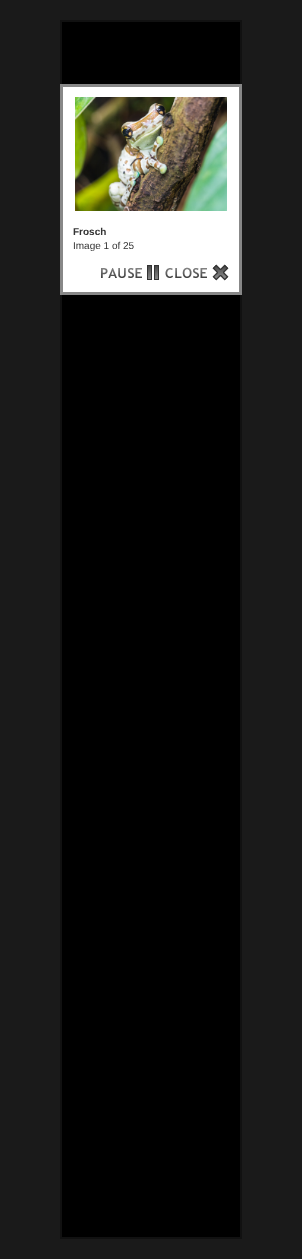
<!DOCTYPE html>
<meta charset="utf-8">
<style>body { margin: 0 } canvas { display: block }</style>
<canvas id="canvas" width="302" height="1259"></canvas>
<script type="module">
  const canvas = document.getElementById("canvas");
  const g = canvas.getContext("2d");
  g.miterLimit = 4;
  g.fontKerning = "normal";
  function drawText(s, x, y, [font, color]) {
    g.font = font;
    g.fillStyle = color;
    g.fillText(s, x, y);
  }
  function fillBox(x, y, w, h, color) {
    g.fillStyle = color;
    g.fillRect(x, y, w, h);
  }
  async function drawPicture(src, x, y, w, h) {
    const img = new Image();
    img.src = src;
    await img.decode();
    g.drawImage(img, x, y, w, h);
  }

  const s1 = ["bold 10px Liberation Sans", "#333333"];
  const s2 = ["10px Liberation Sans", "#333333"];

  fillBox(0, 0, 302, 1259, "#1A1A1A");
  g.fillStyle = "#000000";
  g.beginPath();
  g.rect(61, 21, 180, 1217);
  g.fill();
  g.strokeStyle = "#111111";
  g.lineWidth = 2;
  g.stroke();
  fillBox(60, 84, 182, 3, "#888888");
  fillBox(239, 84, 3, 141, "#888888");
  fillBox(60, 84, 3, 141, "#888888");
  fillBox(63, 87, 176, 205, "#FFFFFF");
  await drawPicture("pic1.png", 75, 97, 152, 114);
  fillBox(239, 225, 3, 70, "#888888");
  fillBox(60, 292, 182, 3, "#888888");
  fillBox(60, 225, 3, 70, "#888888");
  drawText("Frosch", 73, 235, s1);
  drawText("Image 1 of 25", 73, 249, s2);
  await drawPicture("pic2.png", 101, 265, 58, 15);
  await drawPicture("pic3.png", 165, 264, 64, 17);
</script>
